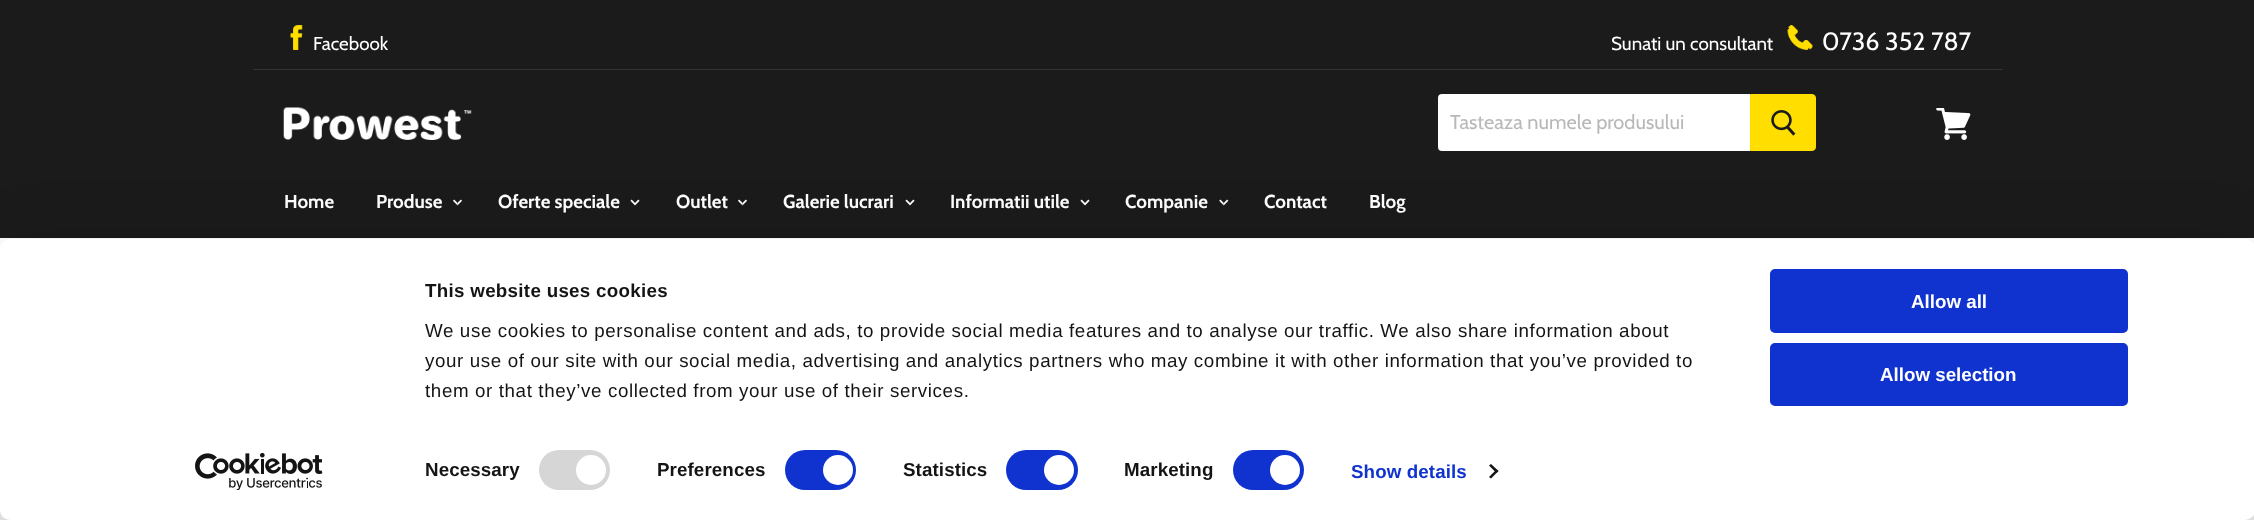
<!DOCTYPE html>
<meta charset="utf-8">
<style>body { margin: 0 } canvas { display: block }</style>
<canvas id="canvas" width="2254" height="520"></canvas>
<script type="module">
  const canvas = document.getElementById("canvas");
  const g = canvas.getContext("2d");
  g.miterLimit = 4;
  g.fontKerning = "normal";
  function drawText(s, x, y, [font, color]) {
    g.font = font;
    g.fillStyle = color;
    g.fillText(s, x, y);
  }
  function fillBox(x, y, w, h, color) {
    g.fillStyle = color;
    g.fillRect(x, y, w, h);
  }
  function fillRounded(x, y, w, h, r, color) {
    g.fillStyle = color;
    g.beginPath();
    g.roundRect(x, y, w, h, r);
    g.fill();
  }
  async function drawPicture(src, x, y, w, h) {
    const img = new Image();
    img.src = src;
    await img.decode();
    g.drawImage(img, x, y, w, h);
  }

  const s1 = ["18.75px Cabin", "#FFFFFF"];
  const s2 = ["25px Cabin", "#FFFFFF"];
  const s3 = ["20px Cabin", "#B8B8B8"];
  const s4 = ["bold 18.75px Cabin", "#FFFFFF"];
  const s5 = ["bold 18.75px Liberation Sans", "#141414"];
  const s6 = ["18.75px Liberation Sans", "#141414"];
  const s7 = ["bold 18.75px Liberation Sans", "#1032CF"];
  const s8 = ["bold 18.75px Liberation Sans", "#FFFFFF"];

  fillBox(0, 0, 2254, 520, "#FFFFFF");
  fillBox(0, 0, 2254, 238, "#1B1B1B");
  fillBox(253, 69, 1750, 1, "#333333");
  await drawPicture("pic1.png", 290, 25, 13, 25);
  drawText("Facebook", 313, 50, s1);
  drawText("Sunati un consultant", 1611, 50, s1);
  await drawPicture("pic2.png", 1787, 25, 26, 25);
  drawText("0736 352 787", 1822, 50, s2);
  await drawPicture("pic3.png", 283, 107, 189, 33);
  g.beginPath();
  g.roundRect(1438, 94, 312, 57, [4, 0, 0, 4]);
  g.fill();
  drawText("Tasteaza numele produsului", 1450, 129, s3);
  g.fillStyle = "#FFDE00";
  g.beginPath();
  g.roundRect(1750.5, 94.5, 65, 56, [0, 3.5, 3.5, 0]);
  g.fill();
  g.strokeStyle = "#FFDE00";
  g.stroke();
  await drawPicture("pic4.png", 1771, 110, 25, 26);
  await drawPicture("pic5.png", 1936, 108, 35, 32);
  drawText("Home", 284, 208, s4);
  drawText("Produse", 376, 208, s4);
  await drawPicture("pic6.png", 453, 199, 9, 7);
  drawText("Oferte speciale", 498, 208, s4);
  await drawPicture("pic7.png", 630, 199, 10, 7);
  drawText("Outlet", 676, 208, s4);
  await drawPicture("pic6.png", 738, 199, 9, 7);
  drawText("Galerie lucrari", 783, 208, s4);
  await drawPicture("pic7.png", 905, 199, 10, 7);
  drawText("Informatii utile", 950, 208, s4);
  await drawPicture("pic7.png", 1080, 199, 10, 7);
  drawText("Companie", 1125, 208, s4);
  await drawPicture("pic8.png", 1219, 199, 10, 7);
  drawText("Contact", 1264, 208, s4);
  drawText("Blog", 1369, 208, s4);
  g.fillStyle = "rgba(0, 0, 0, 0.3)";
  g.filter = "blur(44px)";
  g.beginPath();
  g.roundRect(0, 276, 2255, 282, 10);
  g.fill();
  g.filter = "none";
  fillRounded(0, 239, 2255, 281, 10, "#FFFFFF");
  g.letterSpacing = "0.3px";
  drawText("This website uses cookies", 425, 297, s5);
  g.letterSpacing = "0.62px";
  drawText("We use cookies to personalise content and ads, to provide social media features and to analyse our traffic. We also share information about", 425, 337, s6);
  drawText("your use of our site with our social media, advertising and analytics partners who may combine it with other information that you’ve provided to", 425, 367, s6);
  drawText("them or that they’ve collected from your use of their services.", 425, 397, s6);
  g.letterSpacing = "0.1px";
  drawText("Necessary", 425, 476, s5);
  fillRounded(539, 450, 71, 40, 20, "#D6D6D6");
  g.fillStyle = "#FFFFFF";
  g.beginPath();
  g.arc(591, 470, 15, 0, Math.PI * 2);
  g.fill();
  drawText("Preferences", 657, 476, s5);
  fillRounded(785, 450, 71, 40, 20, "#1032CF");
  g.fillStyle = "#FFFFFF";
  g.beginPath();
  g.arc(838, 470, 15, 0, Math.PI * 2);
  g.fill();
  drawText("Statistics", 903, 476, s5);
  fillRounded(1006, 450, 72, 40, 20, "#1032CF");
  g.fillStyle = "#FFFFFF";
  g.beginPath();
  g.arc(1059, 470, 15, 0, Math.PI * 2);
  g.fill();
  drawText("Marketing", 1124, 476, s5);
  fillRounded(1233, 450, 71, 40, 20, "#1032CF");
  g.fillStyle = "#FFFFFF";
  g.beginPath();
  g.arc(1285, 470, 15, 0, Math.PI * 2);
  g.fill();
  drawText("Show details", 1351, 478, s7);
  g.fillStyle = "#141414";
  g.beginPath();
  g.moveTo(1491, 464);
  g.lineTo(1498.5, 471);
  g.lineTo(1496.5, 473);
  g.lineTo(1489, 465.5);
  g.closePath();
  g.fill();
  g.beginPath();
  g.moveTo(1496.5, 469.5);
  g.lineTo(1498.5, 471);
  g.lineTo(1491, 478.5);
  g.lineTo(1489, 477);
  g.closePath();
  g.fill();
  g.fillStyle = "#1032CF";
  g.beginPath();
  g.roundRect(1771.5, 270.5, 355, 61, 3.5);
  g.fill();
  g.strokeStyle = "#1032CF";
  g.lineWidth = 3;
  g.stroke();
  g.letterSpacing = "0px";
  drawText("Allow all", 1911, 308, s8);
  g.fillStyle = "#1032CF";
  g.beginPath();
  g.roundRect(1771.5, 344.5, 355, 60, 3.5);
  g.fill();
  g.stroke();
  drawText("Allow selection", 1880, 381, s8);
  await drawPicture("pic9.png", 195, 453, 128, 37);
</script>
